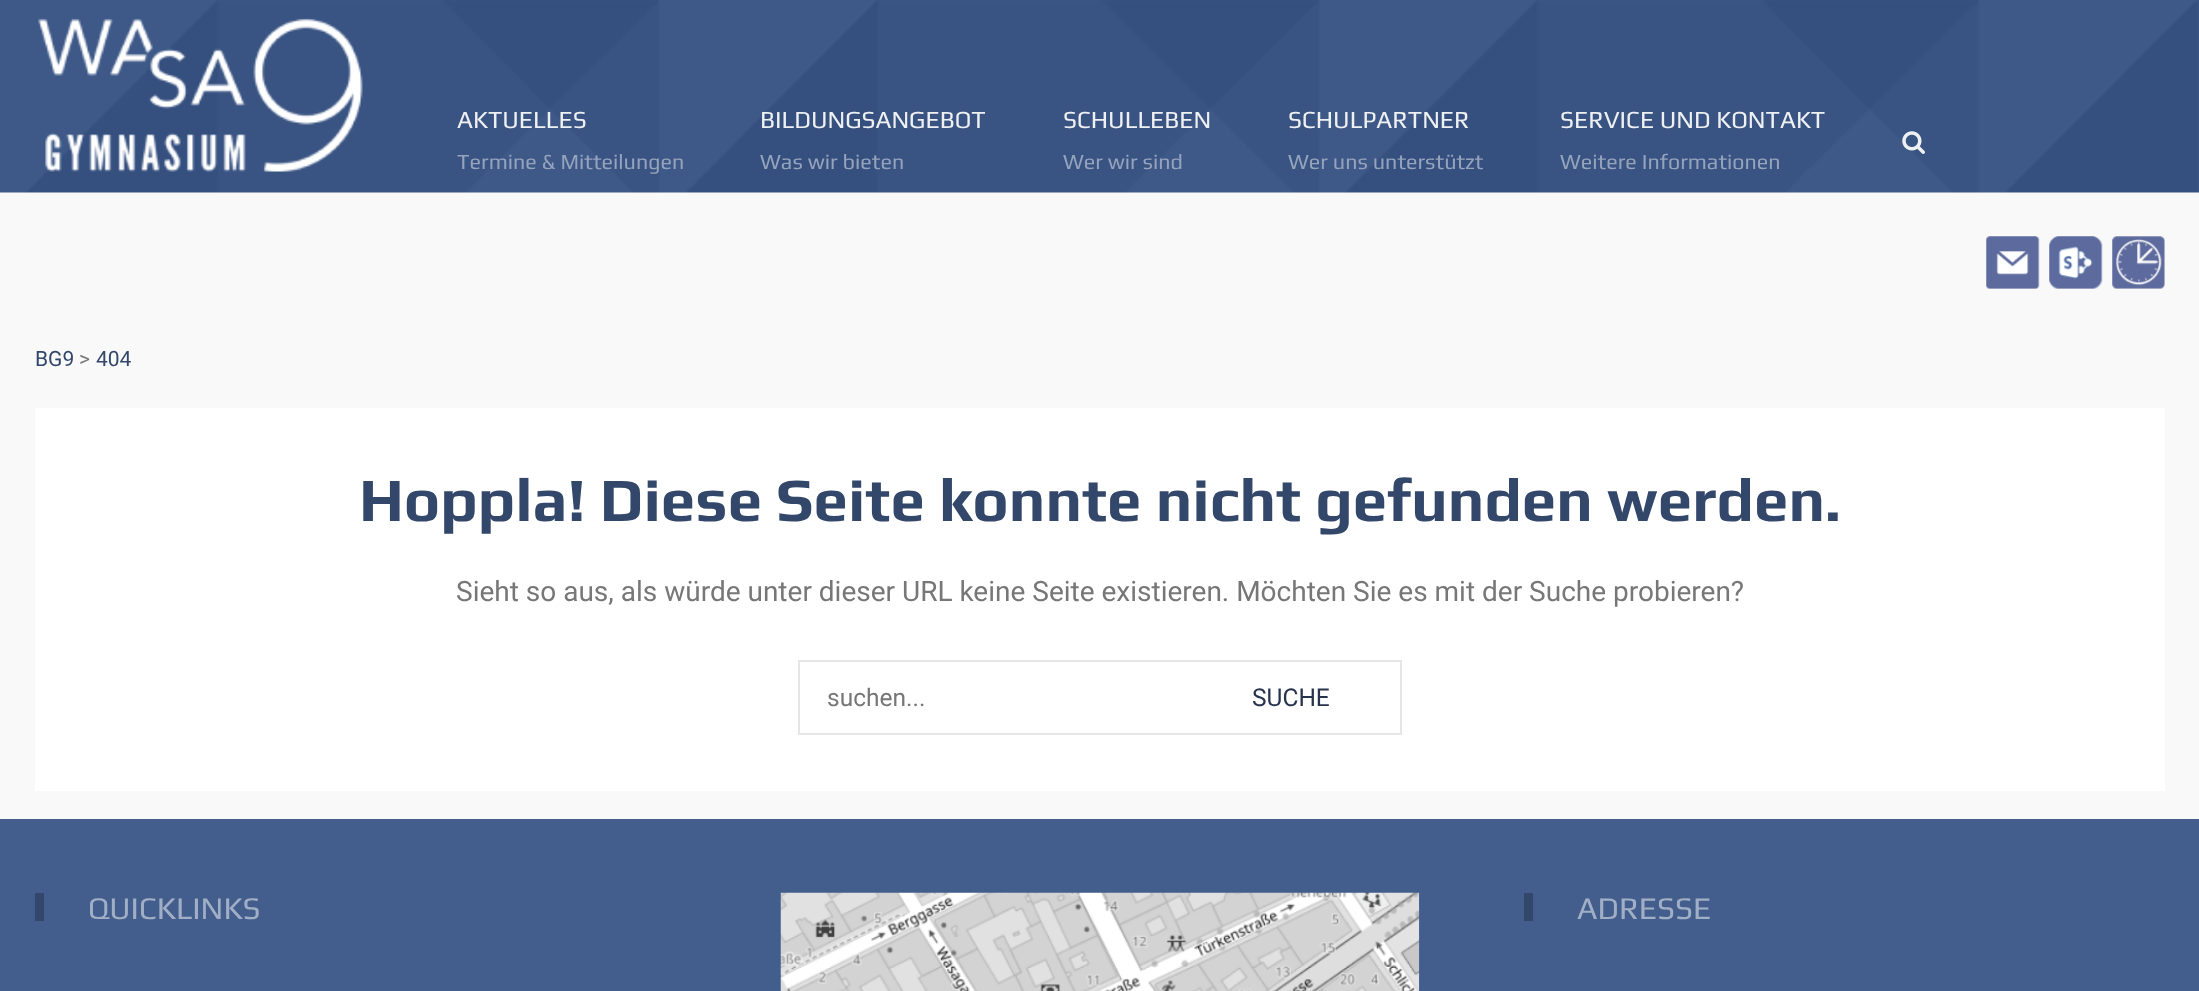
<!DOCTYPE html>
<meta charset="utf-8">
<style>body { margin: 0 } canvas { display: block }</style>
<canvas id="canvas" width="2199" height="991"></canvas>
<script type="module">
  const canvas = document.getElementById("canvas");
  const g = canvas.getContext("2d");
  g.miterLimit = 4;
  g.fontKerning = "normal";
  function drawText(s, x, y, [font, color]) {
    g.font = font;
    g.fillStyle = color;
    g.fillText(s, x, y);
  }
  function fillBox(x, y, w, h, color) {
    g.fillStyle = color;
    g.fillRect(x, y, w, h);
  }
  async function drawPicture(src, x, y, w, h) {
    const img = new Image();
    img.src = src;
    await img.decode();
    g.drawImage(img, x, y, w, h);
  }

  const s1 = ["24.5px Play", "#EEF0F2"];
  const s2 = ["21.5px Play", "#95A3BC"];
  const s3 = ["21px Roboto", "#33476B"];
  const s4 = ["21px Roboto", "#777777"];
  const s5 = ["bold 61.6px Play", "#33476B"];
  const s6 = ["28px Roboto", "#777777"];
  const s7 = ["24.5px Roboto", "#777777"];
  const s8 = ["24.5px Roboto", "#28344E"];
  const s9 = ["31.5px Play", "#A1AFC6"];

  fillBox(0, 0, 2199, 991, "#F9F9F9");
  await drawPicture("pic1.png", 0, 0, 2199, 193);
  await drawPicture("pic2.png", 38, 18, 325, 154);
  drawText("AKTUELLES", 457, 128, s1);
  drawText("Termine & Mitteilungen", 457, 169, s2);
  drawText("BILDUNGSANGEBOT", 760, 128, s1);
  drawText("Was wir bieten", 760, 169, s2);
  drawText("SCHULLEBEN", 1063, 128, s1);
  drawText("Wer wir sind", 1063, 169, s2);
  drawText("SCHULPARTNER", 1288, 128, s1);
  drawText("Wer uns unterstützt", 1288, 169, s2);
  drawText("SERVICE UND KONTAKT", 1560, 128, s1);
  drawText("Weitere Informationen", 1560, 169, s2);
  await drawPicture("pic3.png", 1902, 131, 23, 23);
  await drawPicture("pic4.png", 1986, 236, 54, 53);
  await drawPicture("pic5.png", 2049, 236, 54, 53);
  await drawPicture("pic6.png", 2112, 236, 53, 53);
  drawText("BG9", 35, 366, s3);
  drawText(">", 79, 366, s4);
  drawText("404", 96, 366, s3);
  fillBox(35, 408, 2130, 383, "#FFFFFF");
  drawText("Hoppla! Diese Seite konnte nicht gefunden werden.", 359, 521, s5);
  drawText("Sieht so aus, als würde unter dieser URL keine Seite existieren. Möchten Sie es mit der Suche probieren?", 456, 601, s6);
  g.strokeStyle = "#E6E6E6";
  g.lineWidth = 2;
  g.strokeRect(799, 661, 602, 73);
  drawText("suchen...", 827, 706, s7);
  drawText("SUCHE", 1252, 706, s8);
  fillBox(0, 819, 2199, 172, "#435E8D");
  fillBox(35, 893, 9, 28, "#33476B");
  drawText("QUICKLINKS", 88, 919, s9);
  await drawPicture("pic7.png", 780, 892, 640, 99);
  fillBox(1524, 893, 9, 28, "#33476B");
  drawText("ADRESSE", 1577, 919, s9);
</script>
